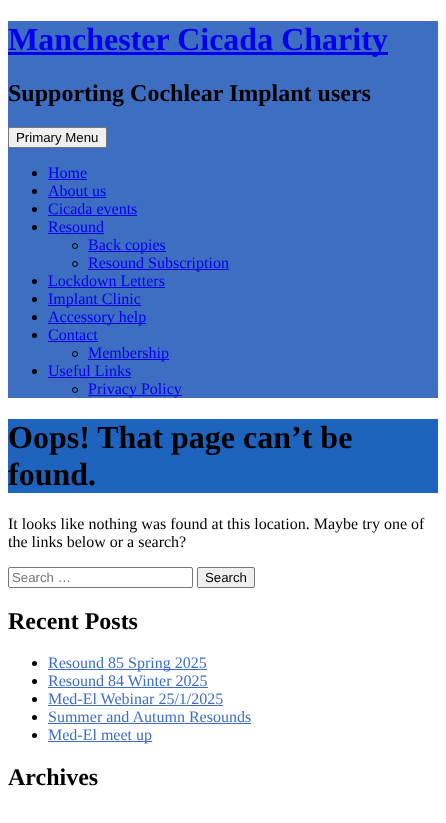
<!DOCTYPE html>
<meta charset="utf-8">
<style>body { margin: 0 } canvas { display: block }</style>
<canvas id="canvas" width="446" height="823"></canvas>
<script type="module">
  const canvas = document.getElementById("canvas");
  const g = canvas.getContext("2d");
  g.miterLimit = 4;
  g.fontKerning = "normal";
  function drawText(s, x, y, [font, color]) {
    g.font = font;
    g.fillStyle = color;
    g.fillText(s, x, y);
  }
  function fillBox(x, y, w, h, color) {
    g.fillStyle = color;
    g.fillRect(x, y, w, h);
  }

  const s1 = ["bold 32px Liberation Serif", "#0000EE"];
  const s2 = ["bold 24px Liberation Serif", "#000000"];
  const s3 = ["13.25px Liberation Sans", "#000000"];
  const s4 = ["16px Liberation Serif", "#0000EE"];
  const s5 = ["bold 32px Liberation Serif", "#000000"];
  const s6 = ["16px Liberation Serif", "#000000"];
  const s7 = ["13.25px Liberation Sans", "#757575"];
  const s8 = ["16px Liberation Serif", "#3E6EC1"];

  fillBox(0, 0, 446, 823, "#FFFFFF");
  fillBox(8, 21, 430, 377, "#3E6EC1");
  fillBox(8, 52, 380, 3, "#0000EE");
  drawText("Manchester Cicada Charity", 8, 50, s1);
  drawText("Supporting Cochlear Implant users", 8, 101, s2);
  g.fillStyle = "#EFEFEF";
  g.beginPath();
  g.roundRect(8.5, 127.5, 98, 20, 1.5);
  g.fill();
  g.strokeStyle = "#767676";
  g.stroke();
  drawText("Primary Menu", 16, 142, s3);
  g.beginPath();
  g.arc(34.5, 173.5, 2.5, 0, Math.PI * 2);
  g.fill();
  drawText("Home", 48, 178, s4);
  fillBox(48, 179, 39, 1, "#0000EE");
  g.fillStyle = "#000000";
  g.beginPath();
  g.arc(34.5, 191.5, 2.5, 0, Math.PI * 2);
  g.fill();
  drawText("About us", 48, 196, s4);
  fillBox(48, 197, 58, 1, "#0000EE");
  g.fillStyle = "#000000";
  g.beginPath();
  g.arc(34.5, 209.5, 2.5, 0, Math.PI * 2);
  g.fill();
  drawText("Cicada events", 48, 214, s4);
  fillBox(48, 215, 89, 1, "#0000EE");
  g.fillStyle = "#000000";
  g.beginPath();
  g.arc(34.5, 227.5, 2.5, 0, Math.PI * 2);
  g.fill();
  drawText("Resound", 48, 232, s4);
  fillBox(48, 233, 56, 1, "#0000EE");
  g.beginPath();
  g.arc(75, 246, 2.5, 0, Math.PI * 2);
  g.strokeStyle = "#000000";
  g.stroke();
  fillBox(88, 251, 78, 1, "#0000EE");
  drawText("Back copies", 88, 250, s4);
  g.beginPath();
  g.arc(75, 264, 2.5, 0, Math.PI * 2);
  g.stroke();
  fillBox(88, 269, 141, 1, "#0000EE");
  drawText("Resound Subscription", 88, 268, s4);
  g.fillStyle = "#000000";
  g.beginPath();
  g.arc(34.5, 281.5, 2.5, 0, Math.PI * 2);
  g.fill();
  drawText("Lockdown Letters", 48, 286, s4);
  fillBox(48, 287, 117, 1, "#0000EE");
  g.fillStyle = "#000000";
  g.beginPath();
  g.arc(34.5, 299.5, 2.5, 0, Math.PI * 2);
  g.fill();
  fillBox(48, 305, 93, 1, "#0000EE");
  drawText("Implant Clinic", 48, 304, s4);
  g.fillStyle = "#000000";
  g.beginPath();
  g.arc(34.5, 317.5, 2.5, 0, Math.PI * 2);
  g.fill();
  fillBox(48, 323, 98, 1, "#0000EE");
  drawText("Accessory help", 48, 322, s4);
  g.fillStyle = "#000000";
  g.beginPath();
  g.arc(34.5, 335.5, 2.5, 0, Math.PI * 2);
  g.fill();
  drawText("Contact", 48, 340, s4);
  fillBox(48, 341, 50, 1, "#0000EE");
  g.beginPath();
  g.arc(75, 354, 2.5, 0, Math.PI * 2);
  g.stroke();
  fillBox(88, 359, 81, 1, "#0000EE");
  drawText("Membership", 88, 358, s4);
  g.fillStyle = "#000000";
  g.beginPath();
  g.arc(34.5, 371.5, 2.5, 0, Math.PI * 2);
  g.fill();
  drawText("Useful Links", 48, 376, s4);
  fillBox(48, 377, 83, 1, "#0000EE");
  g.beginPath();
  g.arc(75, 390, 2.5, 0, Math.PI * 2);
  g.stroke();
  fillBox(88, 395, 94, 1, "#0000EE");
  drawText("Privacy Policy", 88, 394, s4);
  fillBox(8, 419, 430, 74, "#1E64BF");
  drawText("Oops! That page can’t be", 8, 448, s5);
  drawText("found.", 8, 485, s5);
  drawText("It looks like nothing was found at this location. Maybe try one of", 8, 529, s6);
  drawText("the links below or a search?", 8, 547, s6);
  g.beginPath();
  g.roundRect(8.5, 567.5, 184, 20, 1.5);
  g.strokeStyle = "#767676";
  g.stroke();
  drawText("Search …", 12, 582, s7);
  g.fillStyle = "#EFEFEF";
  g.beginPath();
  g.roundRect(197.5, 567.5, 57, 20, 1.5);
  g.fill();
  g.stroke();
  drawText("Search", 205, 582, s3);
  drawText("Recent Posts", 8, 629, s2);
  g.beginPath();
  g.arc(34.5, 663.5, 2.5, 0, Math.PI * 2);
  g.fill();
  fillBox(48, 669, 159, 1, "#3E6EC1");
  drawText("Resound 85 Spring 2025", 48, 668, s8);
  g.fillStyle = "#000000";
  g.beginPath();
  g.arc(34.5, 681.5, 2.5, 0, Math.PI * 2);
  g.fill();
  drawText("Resound 84 Winter 2025", 48, 686, s8);
  fillBox(48, 687, 160, 1, "#3E6EC1");
  g.fillStyle = "#000000";
  g.beginPath();
  g.arc(34.5, 699.5, 2.5, 0, Math.PI * 2);
  g.fill();
  drawText("Med-El Webinar 25/1/2025", 48, 704, s8);
  fillBox(48, 705, 175, 1, "#3E6EC1");
  g.fillStyle = "#000000";
  g.beginPath();
  g.arc(34.5, 717.5, 2.5, 0, Math.PI * 2);
  g.fill();
  drawText("Summer and Autumn Resounds", 48, 722, s8);
  fillBox(48, 723, 203, 1, "#3E6EC1");
  g.fillStyle = "#000000";
  g.beginPath();
  g.arc(34.5, 735.5, 2.5, 0, Math.PI * 2);
  g.fill();
  fillBox(48, 741, 104, 1, "#3E6EC1");
  drawText("Med-El meet up", 48, 740, s8);
  drawText("Archives", 8, 785, s2);
</script>
